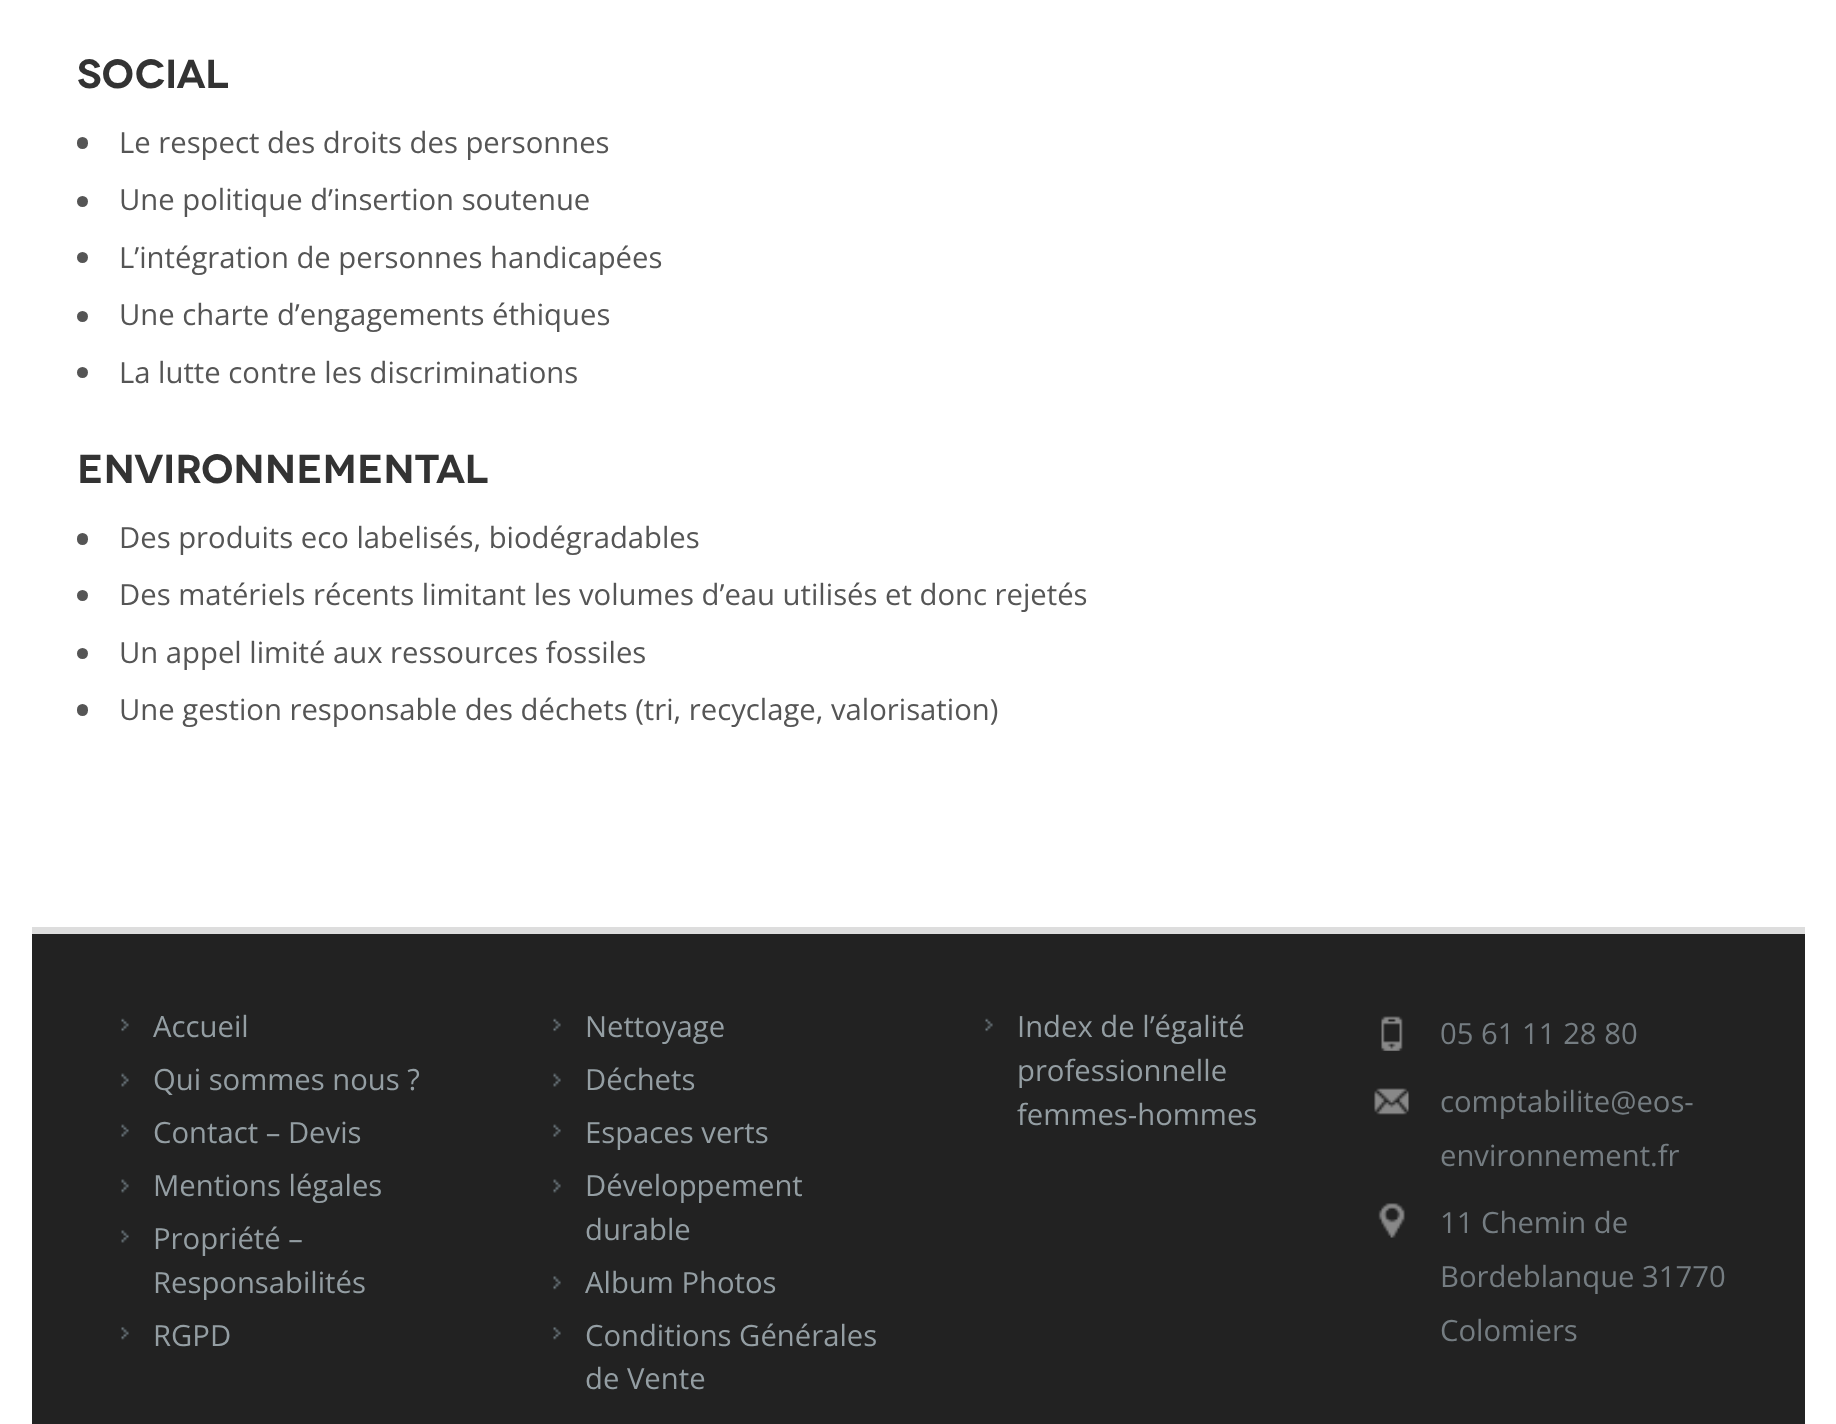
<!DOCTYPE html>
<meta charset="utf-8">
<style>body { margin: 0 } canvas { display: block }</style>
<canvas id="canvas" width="1836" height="1424"></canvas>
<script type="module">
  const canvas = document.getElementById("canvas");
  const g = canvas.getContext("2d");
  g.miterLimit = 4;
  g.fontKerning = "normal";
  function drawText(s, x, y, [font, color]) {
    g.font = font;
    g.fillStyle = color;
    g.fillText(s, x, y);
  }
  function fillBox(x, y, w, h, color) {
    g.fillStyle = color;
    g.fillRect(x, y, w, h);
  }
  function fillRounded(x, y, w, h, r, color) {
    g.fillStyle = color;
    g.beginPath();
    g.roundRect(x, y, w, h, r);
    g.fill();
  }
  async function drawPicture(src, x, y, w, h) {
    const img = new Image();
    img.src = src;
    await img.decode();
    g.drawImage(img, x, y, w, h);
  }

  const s1 = ["600 40.5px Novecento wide", "#333333"];
  const s2 = ["29.25px Open Sans", "#555555"];
  const s3 = ["29.25px Open Sans", "#949EA3"];
  const s4 = ["29.25px Open Sans", "#757D82"];

  fillBox(0, 0, 1836, 1424, "#FFFFFF");
  drawText("Social", 77, 88, s1);
  fillRounded(77, 137, 11, 12, 5.5, "#555555");
  drawText("Le respect des droits des personnes", 119, 153, s2);
  g.beginPath();
  g.arc(82.5, 201.5, 5.5, 0, Math.PI * 2);
  g.fill();
  drawText("Une politique d’insertion soutenue", 119, 210, s2);
  g.beginPath();
  g.arc(82.5, 257.5, 5.5, 0, Math.PI * 2);
  g.fill();
  drawText("L’intégration de personnes handicapées", 119, 268, s2);
  g.beginPath();
  g.arc(82.5, 316.5, 5.5, 0, Math.PI * 2);
  g.fill();
  drawText("Une charte d’engagements éthiques", 119, 325, s2);
  g.beginPath();
  g.arc(82.5, 372.5, 5.5, 0, Math.PI * 2);
  g.fill();
  drawText("La lutte contre les discriminations", 119, 383, s2);
  drawText("Environnemental", 77, 483, s1);
  fillRounded(77, 533, 11, 12, 5.5, "#555555");
  drawText("Des produits eco labelisés, biodégradables", 119, 548, s2);
  g.beginPath();
  g.arc(82.5, 595.5, 5.5, 0, Math.PI * 2);
  g.fill();
  drawText("Des matériels récents limitant les volumes d’eau utilisés et donc rejetés", 119, 605, s2);
  g.beginPath();
  g.arc(82.5, 653.5, 5.5, 0, Math.PI * 2);
  g.fill();
  drawText("Un appel limité aux ressources fossiles", 119, 663, s2);
  fillRounded(77, 704, 11, 12, 5.5, "#555555");
  drawText("Une gestion responsable des déchets (tri, recyclage, valorisation)", 119, 720, s2);
  fillBox(32, 934, 1773, 490, "#222222");
  fillBox(32, 927, 1773, 7, "#DDDDDD");
  await drawPicture("pic1.png", 121, 1018, 8, 14);
  drawText("Accueil", 153, 1037, s3);
  await drawPicture("pic2.png", 121, 1073, 8, 14);
  drawText("Qui sommes nous ?", 153, 1090, s3);
  await drawPicture("pic3.png", 121, 1124, 8, 13);
  drawText("Contact – Devis", 153, 1143, s3);
  await drawPicture("pic4.png", 121, 1179, 8, 14);
  drawText("Mentions légales", 153, 1196, s3);
  await drawPicture("pic5.png", 121, 1230, 8, 13);
  drawText("Propriété –", 153, 1249, s3);
  drawText("Responsabilités", 153, 1293, s3);
  await drawPicture("pic6.png", 121, 1327, 8, 13);
  drawText("RGPD", 153, 1346, s3);
  await drawPicture("pic1.png", 553, 1018, 8, 14);
  drawText("Nettoyage", 585, 1037, s3);
  await drawPicture("pic2.png", 553, 1073, 8, 14);
  drawText("Déchets", 585, 1090, s3);
  await drawPicture("pic3.png", 553, 1124, 8, 13);
  drawText("Espaces verts", 585, 1143, s3);
  await drawPicture("pic4.png", 553, 1179, 8, 14);
  drawText("Développement", 585, 1196, s3);
  drawText("durable", 585, 1240, s3);
  await drawPicture("pic7.png", 553, 1276, 8, 14);
  drawText("Album Photos", 585, 1293, s3);
  await drawPicture("pic6.png", 553, 1327, 8, 13);
  drawText("Conditions Générales", 585, 1346, s3);
  drawText("de Vente", 585, 1389, s3);
  await drawPicture("pic1.png", 985, 1018, 8, 14);
  drawText("Index de l’égalité", 1017, 1037, s3);
  drawText("professionnelle", 1017, 1081, s3);
  drawText("femmes-hommes", 1017, 1125, s3);
  await drawPicture("pic8.png", 1381, 1016, 22, 35);
  drawText("05 61 11 28 80", 1440, 1044, s4);
  await drawPicture("pic9.png", 1374, 1088, 35, 27);
  drawText("comptabilite@eos-", 1440, 1112, s4);
  drawText("environnement.fr", 1440, 1166, s4);
  await drawPicture("pic10.png", 1378, 1203, 27, 35);
  drawText("11 Chemin de", 1440, 1233, s4);
  drawText("Bordeblanque 31770", 1440, 1287, s4);
  drawText("Colomiers", 1440, 1341, s4);
</script>
